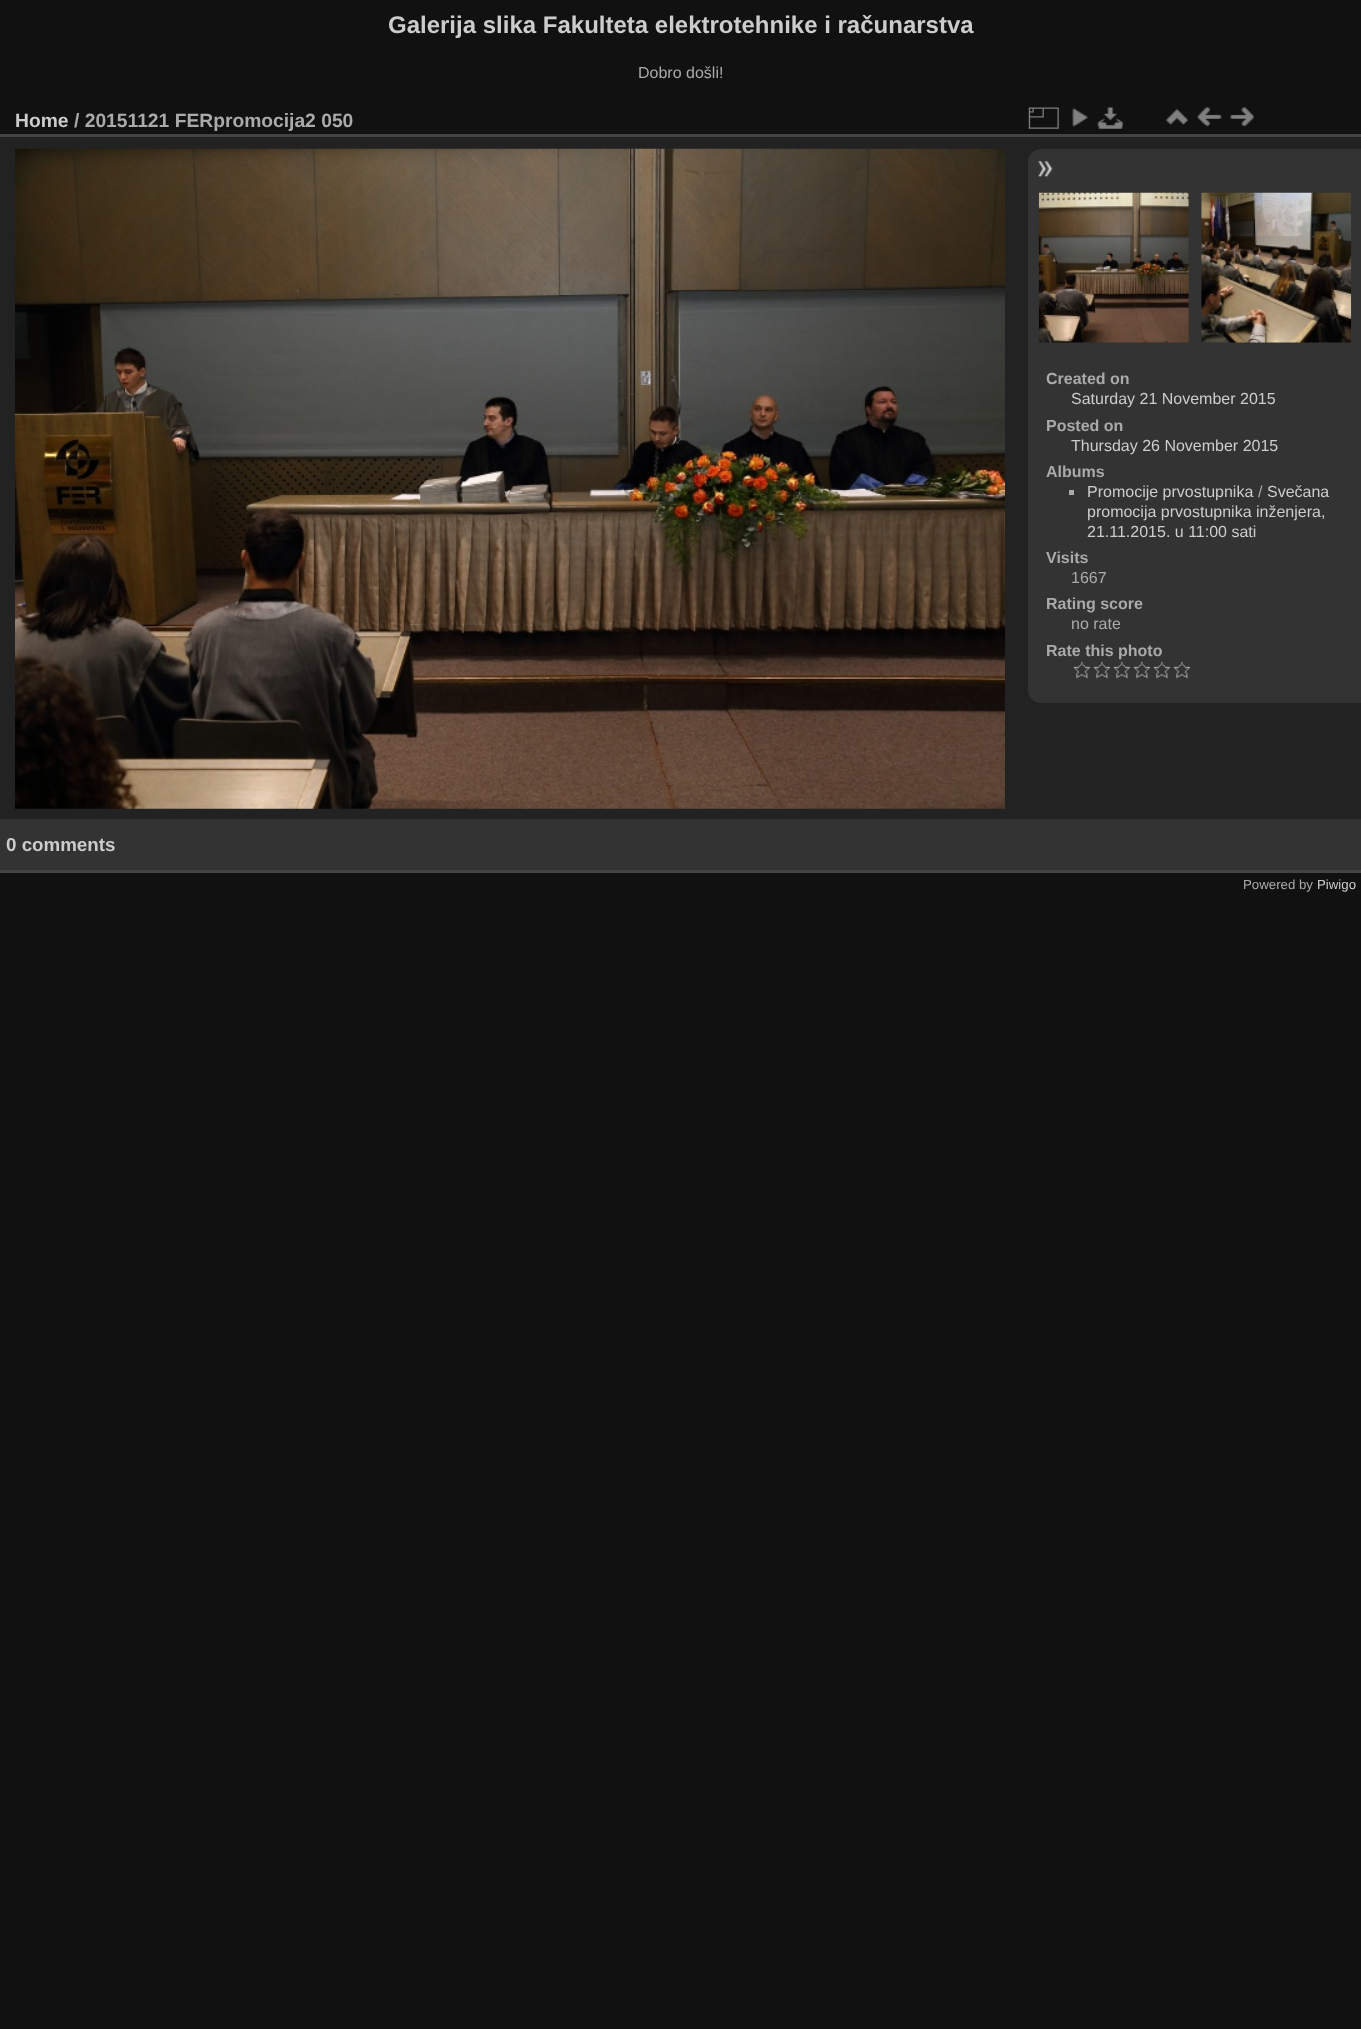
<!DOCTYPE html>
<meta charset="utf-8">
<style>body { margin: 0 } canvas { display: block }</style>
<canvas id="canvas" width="1361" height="2029"></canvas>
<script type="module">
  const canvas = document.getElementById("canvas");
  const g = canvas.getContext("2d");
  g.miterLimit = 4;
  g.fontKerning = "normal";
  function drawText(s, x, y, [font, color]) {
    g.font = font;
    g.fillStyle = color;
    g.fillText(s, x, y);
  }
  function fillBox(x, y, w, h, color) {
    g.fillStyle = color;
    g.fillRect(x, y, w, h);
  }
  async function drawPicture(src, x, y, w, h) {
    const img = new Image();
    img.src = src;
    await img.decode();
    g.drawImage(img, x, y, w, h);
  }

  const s1 = ["bold 24px Liberation Sans", "#CCCCCC"];
  const s2 = ["16px Liberation Sans", "#AAAAAA"];
  const s3 = ["bold 19.25px Liberation Sans", "#CCCCCC"];
  const s4 = ["bold 19.25px Liberation Sans", "#AAAAAA"];
  const s5 = ["bold 16px Liberation Sans", "#AAAAAA"];
  const s6 = ["16px Liberation Sans", "#CCCCCC"];
  const s7 = ["bold 18.75px Liberation Sans", "#CCCCCC"];
  const s8 = ["13.25px Liberation Sans", "#AAAAAA"];
  const s9 = ["13.25px Liberation Sans", "#CCCCCC"];

  fillBox(0, 0, 1361, 2029, "#111111");
  drawText("Galerija slika Fakulteta elektrotehnike i računarstva", 388, 33, s1);
  drawText("Dobro došli!", 638, 78, s2);
  fillBox(0, 137, 1361, 682, "#222222");
  fillBox(0, 870, 1361, 3, "#444444");
  fillBox(0, 134, 1361, 3, "#444444");
  drawText("Home", 15, 127, s3);
  drawText("/ 20151121 FERpromocija2 050", 74, 127, s4);
  await drawPicture("pic1.png", 1028, 107, 31, 22);
  await drawPicture("pic2.png", 1072, 108, 16, 19);
  await drawPicture("pic3.png", 1097, 107, 27, 22);
  await drawPicture("pic4.png", 1166, 108, 22, 18);
  await drawPicture("pic5.png", 1197, 107, 25, 20);
  await drawPicture("pic6.png", 1230, 107, 24, 20);
  await drawPicture("pic7.png", 15, 148, 990, 661);
  g.fillStyle = "#333333";
  g.beginPath();
  g.roundRect(1028, 149, 333, 554, [13, 0, 0, 13]);
  g.fill();
  await drawPicture("pic8.png", 1038, 161, 15, 16);
  await drawPicture("pic9.png", 1038, 192, 151, 151);
  await drawPicture("pic10.png", 1201, 192, 151, 151);
  drawText("Created on", 1046, 384, s5);
  drawText("Saturday 21 November 2015", 1071, 404, s6);
  drawText("Posted on", 1046, 431, s5);
  drawText("Thursday 26 November 2015", 1071, 451, s6);
  drawText("Albums", 1046, 477, s5);
  fillBox(1069, 490, 5, 5, "#AAAAAA");
  drawText("Promocije prvostupnika", 1087, 497, s6);
  drawText("/", 1258, 497, s2);
  drawText("Svečana", 1267, 497, s6);
  drawText("promocija prvostupnika inženjera,", 1087, 517, s6);
  drawText("21.11.2015. u 11:00 sati", 1087, 537, s6);
  drawText("Visits", 1046, 563, s5);
  drawText("1667", 1071, 583, s2);
  drawText("Rating score", 1046, 609, s5);
  drawText("no rate", 1071, 629, s2);
  drawText("Rate this photo", 1046, 656, s5);
  await drawPicture("pic11.png", 1073, 661, 18, 18);
  await drawPicture("pic11.png", 1093, 661, 18, 18);
  await drawPicture("pic11.png", 1113, 661, 18, 18);
  await drawPicture("pic11.png", 1133, 661, 18, 18);
  await drawPicture("pic11.png", 1153, 661, 18, 18);
  await drawPicture("pic11.png", 1173, 661, 18, 18);
  fillBox(0, 819, 1361, 51, "#333333");
  drawText("0 comments", 6, 851, s7);
  drawText("Powered by", 1243, 889, s8);
  drawText("Piwigo", 1317, 889, s9);
</script>
